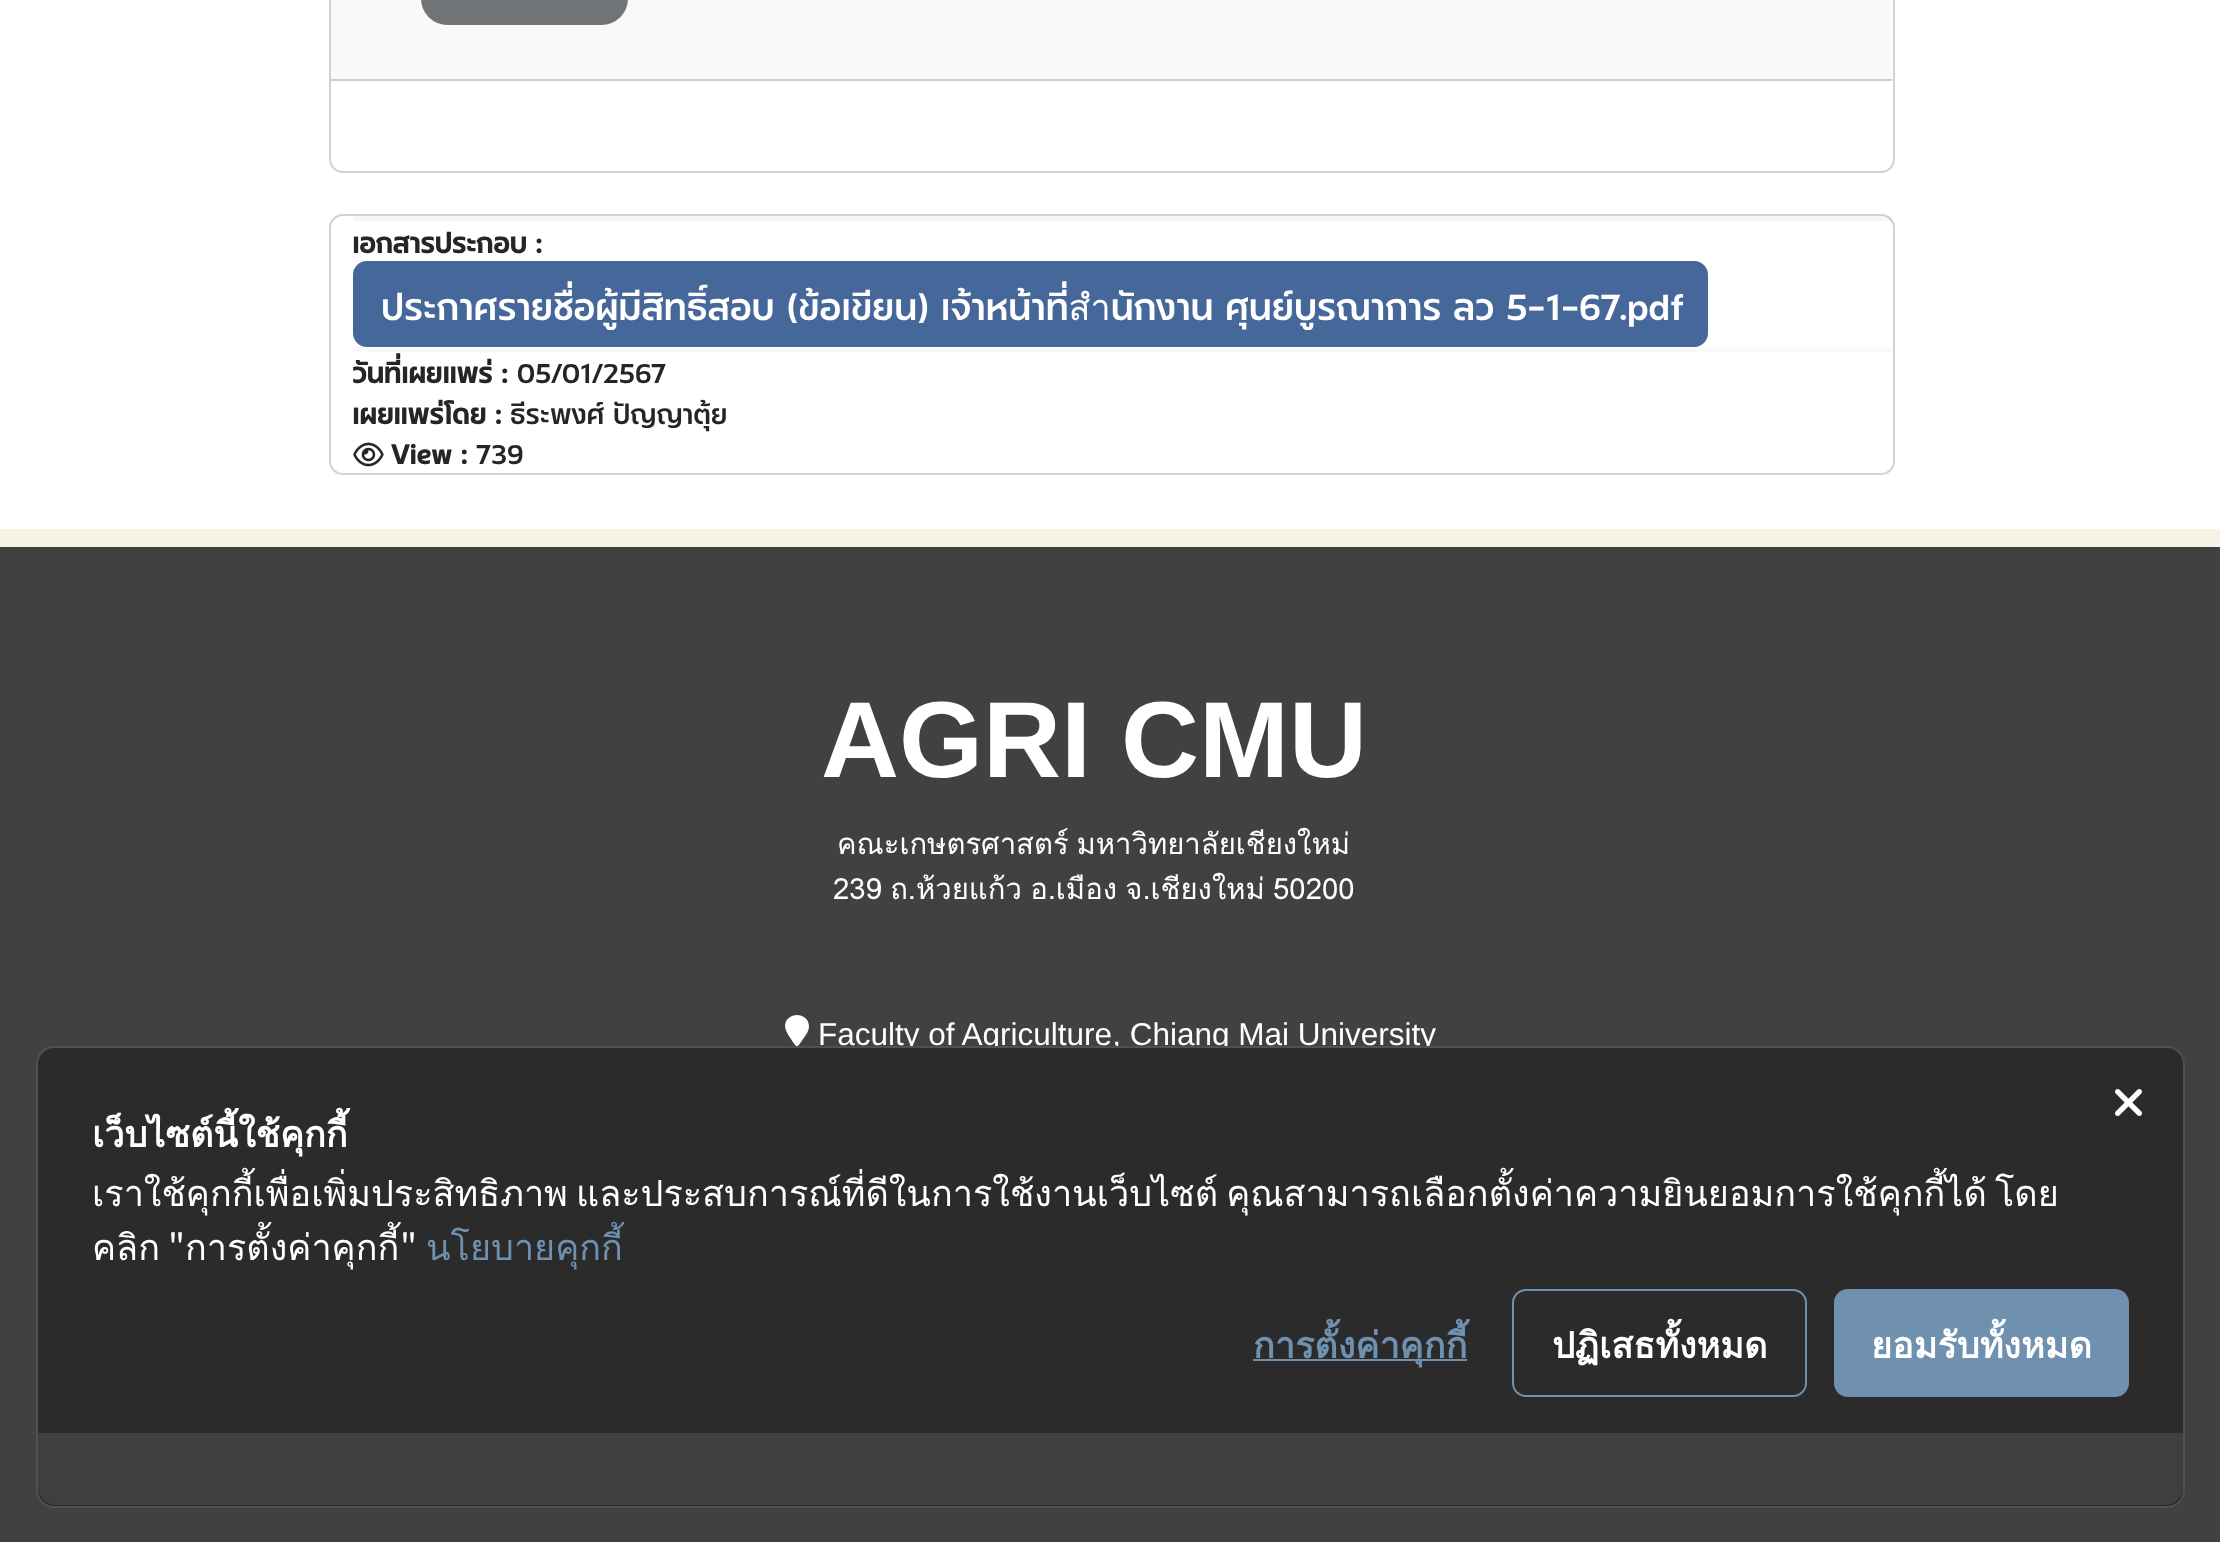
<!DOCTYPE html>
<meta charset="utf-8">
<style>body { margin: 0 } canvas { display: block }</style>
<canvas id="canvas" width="2220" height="1542"></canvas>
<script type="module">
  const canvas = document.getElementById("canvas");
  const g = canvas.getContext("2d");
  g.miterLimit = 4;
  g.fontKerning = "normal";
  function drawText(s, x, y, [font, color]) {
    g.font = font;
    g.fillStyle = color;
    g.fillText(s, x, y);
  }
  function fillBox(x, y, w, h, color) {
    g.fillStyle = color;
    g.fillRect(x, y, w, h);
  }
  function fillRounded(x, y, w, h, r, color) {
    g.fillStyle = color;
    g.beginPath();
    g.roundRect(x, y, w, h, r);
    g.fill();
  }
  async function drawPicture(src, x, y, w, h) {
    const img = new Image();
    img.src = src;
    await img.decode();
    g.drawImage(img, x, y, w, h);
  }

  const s1 = ["bold 27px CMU", "#232526"];
  const s2 = ["36px CMU", "#FFFFFF"];
  const s3 = ["27px CMU", "#232526"];
  const s4 = ["bold 108px Liberation Sans", "#FFFFFF"];
  const s5 = ["29.25px Loma", "#FFFFFF"];
  const s6 = ["31.5px Liberation Sans", "#FFFFFF"];
  const s7 = ["bold 36px Loma", "#FFFFFF"];
  const s8 = ["36px Loma", "#FFFFFF"];
  const s9 = ["36px Noto Sans JP", "#FFFFFF"];
  const s10 = ["36px Loma", "#7090B0"];
  const s11 = ["bold 36px Loma", "#7090B0"];

  fillBox(0, 0, 2220, 1542, "#FFFFFF");
  g.beginPath();
  g.roundRect(330, -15, 1564, 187, 13);
  g.strokeStyle = "#D2D2D2";
  g.lineWidth = 2;
  g.stroke();
  fillBox(331, 0, 1561, 79, "#F9F9F9");
  fillBox(331, 79, 1561, 2, "#CDCDCD");
  fillRounded(421, -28, 207, 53, 28, "#717477");
  g.beginPath();
  g.roundRect(330, 215, 1564, 259, 13);
  g.stroke();
  fillBox(353, 216, 1539, 5, "rgba(0, 0, 0, 0.03)");
  drawText("เอกสารประกอบ :", 352, 253, s1);
  g.fillStyle = "#456799";
  g.beginPath();
  g.roundRect(354, 262, 1353, 84, 13);
  g.fill();
  g.strokeStyle = "#456799";
  g.stroke();
  drawText("ประกาศรายชื่อผู้มีสิทธิ์สอบ (ข้อเขียน) เจ้าหน้าที่สำนักงาน ศุนย์บูรณาการ ลว 5-1-67.pdf", 381, 320, s2);
  fillBox(353, 347, 1539, 5, "#F9F9F9");
  drawText("วันที่เผยแพร่ :", 352, 383, s1);
  drawText("05/01/2567", 517, 383, s3);
  drawText("เผยแพร่โดย :", 352, 424, s1);
  drawText("ธีระพงศ์ ปัญญาตุ้ย", 510, 424, s3);
  await drawPicture("pic1.png", 353, 442, 31, 25);
  drawText("View :", 391, 464, s1);
  drawText("739", 476, 464, s3);
  fillBox(0, 529, 2220, 18, "#F6F3E6");
  fillBox(0, 547, 2220, 995, "#414141");
  drawText("AGRI CMU", 821, 777, s4);
  g.wordSpacing = "-2px";
  drawText("คณะเกษตรศาสตร์ มหาวิทยาลัยเชียงใหม่", 837, 854, s5);
  g.wordSpacing = "-1.5px";
  drawText("239 ถ.ห้วยแก้ว อ.เมือง จ.เชียงใหม่ 50200", 833, 899, s5);
  g.beginPath();
  g.moveTo(809, 1026.5);
  g.bezierCurveTo(809, 1031, 805.5, 1035.5, 803, 1039);
  g.bezierCurveTo(797, 1048.5, 797, 1048.5, 791, 1039);
  g.bezierCurveTo(788.5, 1035.5, 785.5, 1031, 785, 1026.5);
  g.bezierCurveTo(785, 1011, 809, 1011, 809, 1026.5);
  g.closePath();
  g.fill();
  g.wordSpacing = "0px";
  drawText("Faculty of Agriculture, Chiang Mai University", 818, 1045, s6);
  g.fillStyle = "#2B2B2B";
  g.beginPath();
  g.roundRect(37, 1047, 2147, 460, 17);
  g.fill();
  g.strokeStyle = "#505050";
  g.stroke();
  await drawPicture("pic2.png", 2115, 1089, 27, 27);
  drawText("เว็บไซต์นี้ใช้คุกกี้", 92, 1147, s7);
  g.wordSpacing = "-4px";
  drawText("เราใช้คุกกี้เพื่อเพิ่มประสิทธิภาพ และประสบการณ์ที่ดีในการใช้งานเว็บไซต์ คุณสามารถเลือกตั้งค่าความยินยอมการใช้คุกกี้ได้ โดย", 92, 1206, s8);
  g.wordSpacing = "0px";
  drawText("คลิก", 92, 1260, s8);
  drawText("\"", 168, 1260, s9);
  drawText("การตั้งค่าคุกกี้", 185, 1260, s8);
  drawText("\"", 400, 1260, s9);
  drawText("นโยบายคุกกี้", 426, 1260, s10);
  fillBox(1253, 1359, 214, 2, "#7090B0");
  drawText("การตั้งค่าคุกกี้", 1253, 1358, s11);
  g.beginPath();
  g.roundRect(1513, 1290, 293, 106, 13);
  g.strokeStyle = "#7090B0";
  g.stroke();
  drawText("ปฏิเสธทั้งหมด", 1552, 1358, s7);
  fillRounded(1834, 1289, 295, 108, 14, "#7090B0");
  drawText("ยอมรับทั้งหมด", 1871, 1358, s7);
  g.fillStyle = "#3F3F3F";
  g.beginPath();
  g.roundRect(38, 1433, 2145, 72, [0, 0, 18, 18]);
  g.fill();
</script>
